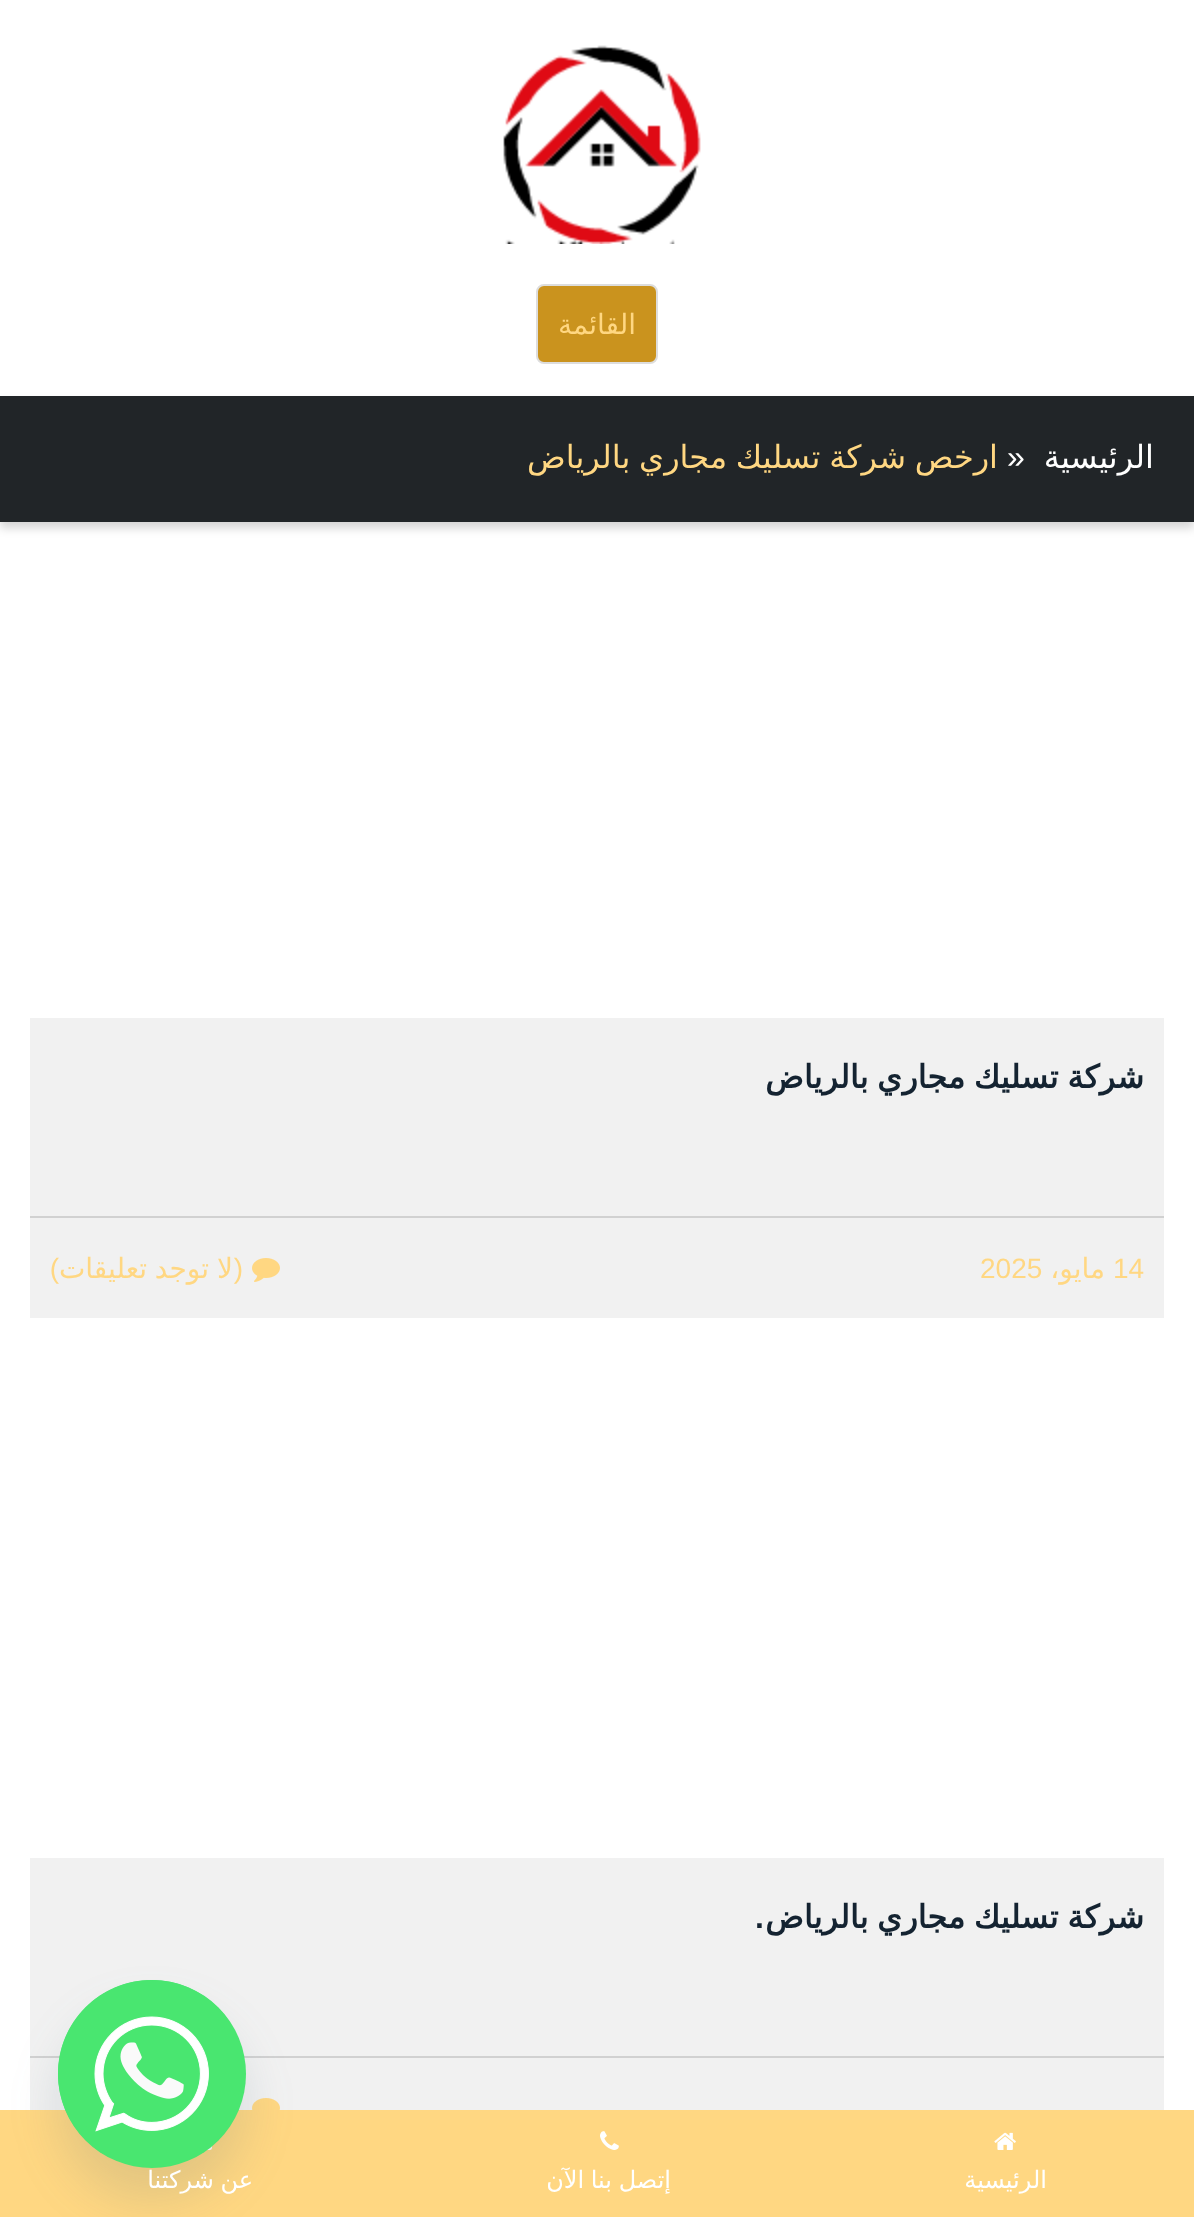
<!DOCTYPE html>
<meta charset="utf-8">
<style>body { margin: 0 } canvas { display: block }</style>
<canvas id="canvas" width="1194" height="2217"></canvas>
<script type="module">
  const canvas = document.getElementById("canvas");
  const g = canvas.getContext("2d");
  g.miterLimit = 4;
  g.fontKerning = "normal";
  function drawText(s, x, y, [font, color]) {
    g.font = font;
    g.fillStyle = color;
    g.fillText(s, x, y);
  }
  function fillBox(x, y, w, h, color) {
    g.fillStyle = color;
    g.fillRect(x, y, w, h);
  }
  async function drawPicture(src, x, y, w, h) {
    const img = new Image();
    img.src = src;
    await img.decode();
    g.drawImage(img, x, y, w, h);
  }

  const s1 = ["28px DejaVu Sans", "#FFD782"];
  const s2 = ["32px DejaVu Sans", "#FFFFFF"];
  const s3 = ["32px Liberation Sans", "#FFFFFF"];
  const s4 = ["32px DejaVu Sans", "#FFD782"];
  const s5 = ["bold 32px DejaVu Sans", "#142331"];
  const s6 = ["28px Liberation Sans", "#FFD782"];
  const s7 = ["bold 32px Liberation Sans", "#142331"];
  const s8 = ["24px DejaVu Sans", "#FFFFFF"];

  fillBox(0, 0, 1194, 2217, "#FFFFFF");
  await drawPicture("pic1.png", 503, 45, 198, 199);
  g.fillStyle = "#CA931E";
  g.beginPath();
  g.roundRect(537, 285, 120, 78, 7);
  g.fill();
  g.strokeStyle = "#DDDDDD";
  g.lineWidth = 2;
  g.stroke();
  g.direction = "rtl";
  drawText("القائمة", 636, 334, s1);
  g.fillStyle = "rgba(0, 0, 0, 0.17)";
  g.filter = "blur(5px)";
  g.beginPath();
  g.rect(0, 402, 1194, 126);
  g.fill();
  g.filter = "none";
  fillBox(0, 396, 1194, 126, "#212528");
  drawText("الرئيسية", 1154, 468, s2);
  g.direction = "ltr";
  drawText("»", 1007, 468, s3);
  g.wordSpacing = "-1.5px";
  g.direction = "rtl";
  drawText("ارخص شركة تسليك مجاري بالرياض", 998, 468, s4);
  fillBox(30, 1018, 1134, 198, "#F1F1F1");
  fillBox(30, 1216, 1134, 2, "#D1D1D1");
  drawText("شركة تسليك مجاري بالرياض", 1144, 1088, s5);
  fillBox(30, 1218, 1134, 100, "#F1F1F1");
  g.wordSpacing = "0px";
  g.direction = "ltr";
  drawText("14", 1113, 1278, s6);
  g.direction = "rtl";
  drawText("مايو،", 1105, 1278, s1);
  g.direction = "ltr";
  drawText("2025", 980, 1278, s6);
  await drawPicture("pic2.png", 252, 1258, 28, 24);
  g.direction = "rtl";
  drawText("(", 243, 1278, s6);
  g.wordSpacing = "-1px";
  drawText("لا توجد تعليقات", 233, 1278, s1);
  g.wordSpacing = "0px";
  drawText(")", 59, 1278, s6);
  fillBox(30, 1858, 1134, 198, "#F1F1F1");
  fillBox(30, 2056, 1134, 2, "#D1D1D1");
  g.wordSpacing = "-1.5px";
  drawText("شركة تسليك مجاري بالرياض", 1144, 1928, s5);
  g.wordSpacing = "0px";
  drawText(".", 764, 1928, s7);
  fillBox(30, 2058, 1134, 52, "#F1F1F1");
  await drawPicture("pic3.png", 252, 2098, 28, 12);
  fillBox(0, 2110, 1194, 107, "#FFD782");
  await drawPicture("pic7.png", 207, 2146, 5, 4);
  g.fillStyle = "rgba(73, 104, 126, 0.16)";
  g.filter = "blur(24px)";
  g.beginPath();
  g.roundRect(58, 2012, 188, 188, 94);
  g.fill();
  g.filter = "none";
  g.fillStyle = "#49E670";
  g.beginPath();
  g.arc(152, 2074, 94, 0, Math.PI * 2);
  g.fill();
  await drawPicture("pic4.png", 58, 1980, 170, 174);
  await drawPicture("pic5.png", 994, 2132, 22, 18);
  drawText("الرئيسية", 1047, 2188, s8);
  await drawPicture("pic6.png", 600, 2131, 19, 19);
  g.wordSpacing = "-1px";
  drawText("إتصل بنا الآن", 671, 2188, s8);
  drawText("عن شركتنا", 253, 2188, s8);
</script>
